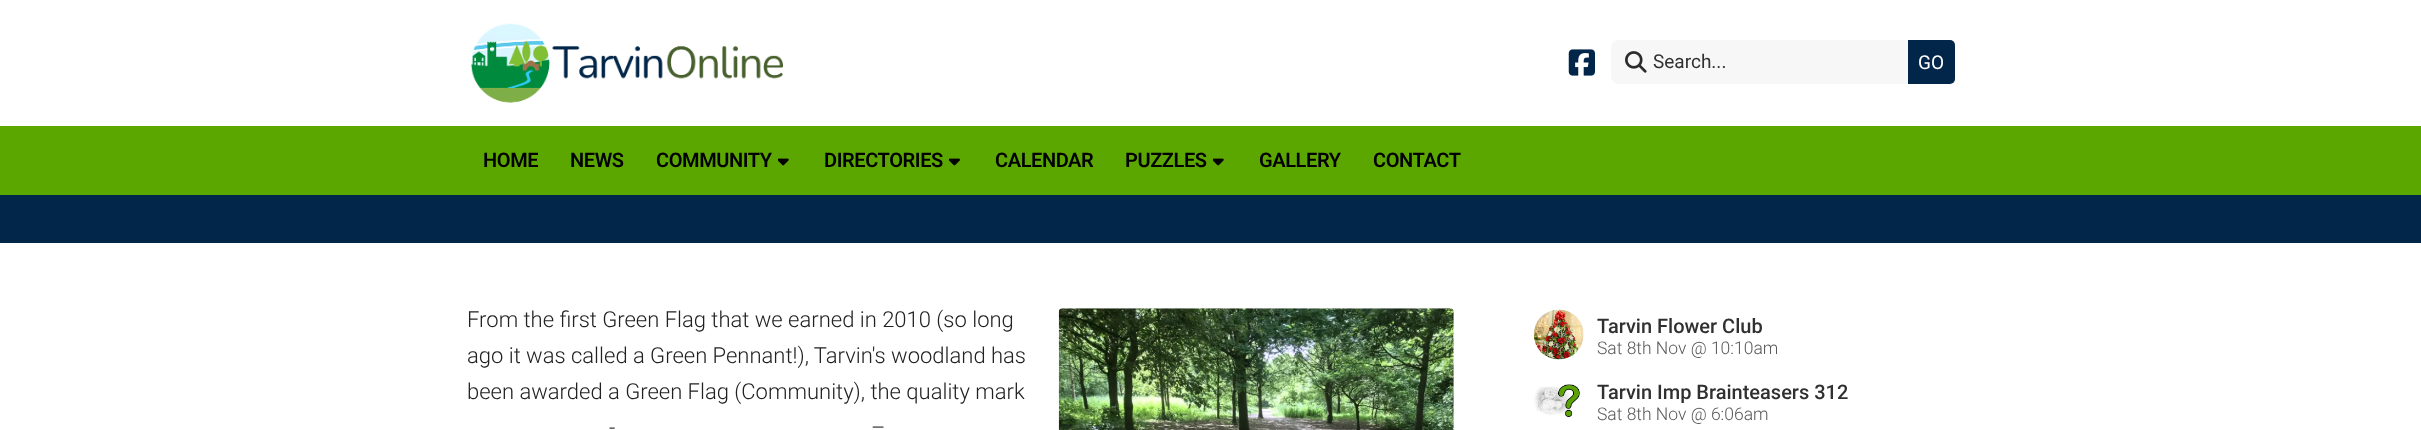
<!DOCTYPE html>
<meta charset="utf-8">
<style>body { margin: 0 } canvas { display: block }</style>
<canvas id="canvas" width="2421" height="430"></canvas>
<script type="module">
  const canvas = document.getElementById("canvas");
  const g = canvas.getContext("2d");
  g.miterLimit = 4;
  g.fontKerning = "normal";
  function drawText(s, x, y, [font, color]) {
    g.font = font;
    g.fillStyle = color;
    g.fillText(s, x, y);
  }
  function fillBox(x, y, w, h, color) {
    g.fillStyle = color;
    g.fillRect(x, y, w, h);
  }
  function fillRounded(x, y, w, h, r, color) {
    g.fillStyle = color;
    g.beginPath();
    g.roundRect(x, y, w, h, r);
    g.fill();
  }
  async function drawPicture(src, x, y, w, h) {
    const img = new Image();
    img.src = src;
    await img.decode();
    g.drawImage(img, x, y, w, h);
  }

  const s1 = ["19px Roboto", "#303030"];
  const s2 = ["19px Roboto", "#FFFFFF"];
  const s3 = ["600 20px Roboto", "#000000"];
  const s4 = ["300 22px Roboto", "#212121"];
  const s5 = ["500 20px Roboto", "#303030"];
  const s6 = ["300 17.5px Roboto", "#595959"];

  fillBox(0, 0, 2421, 430, "#FFFFFF");
  await drawPicture("pic1.png", 470, 23, 313, 80);
  await drawPicture("pic2.png", 1568, 49, 27, 27);
  fillRounded(1611, 40, 344, 44, 8, "#F7F7F7");
  await drawPicture("pic3.png", 1625, 51, 22, 22);
  drawText("Search...", 1653, 68, s1);
  g.fillStyle = "#022649";
  g.beginPath();
  g.roundRect(1908, 40, 47, 44, [0, 5, 5, 0]);
  g.fill();
  drawText("GO", 1918, 69, s2);
  fillBox(0, 126, 2421, 69, "#5BA700");
  g.letterSpacing = "-0.4px";
  drawText("HOME", 483, 167, s3);
  drawText("NEWS", 570, 167, s3);
  drawText("COMMUNITY", 656, 167, s3);
  await drawPicture("pic4.png", 778, 158, 11, 8);
  drawText("DIRECTORIES", 824, 167, s3);
  await drawPicture("pic5.png", 949, 158, 11, 8);
  drawText("CALENDAR", 995, 167, s3);
  drawText("PUZZLES", 1125, 167, s3);
  await drawPicture("pic4.png", 1213, 158, 11, 8);
  drawText("GALLERY", 1259, 167, s3);
  drawText("CONTACT", 1373, 167, s3);
  fillBox(0, 195, 2421, 48, "#022649");
  g.letterSpacing = "0px";
  drawText("From the first Green Flag that we earned in 2010 (so long", 467, 327, s4);
  drawText("ago it was called a Green Pennant!), Tarvin's woodland has", 467, 363, s4);
  drawText("been awarded a Green Flag (Community), the quality mark", 467, 399, s4);
  drawText("-", 609, 435, s4);
  drawText("–", 871, 435, s4);
  await drawPicture("pic6.png", 1058, 308, 396, 122);
  await drawPicture("pic7.png", 1533, 309, 51, 51);
  drawText("Tarvin Flower Club", 1597, 333, s5);
  drawText("Sat 8th Nov @ 10:10am", 1597, 354, s6);
  await drawPicture("pic8.png", 1534, 384, 46, 34);
  drawText("Tarvin Imp Brainteasers 312", 1597, 399, s5);
  drawText("Sat 8th Nov @ 6:06am", 1597, 420, s6);
</script>
